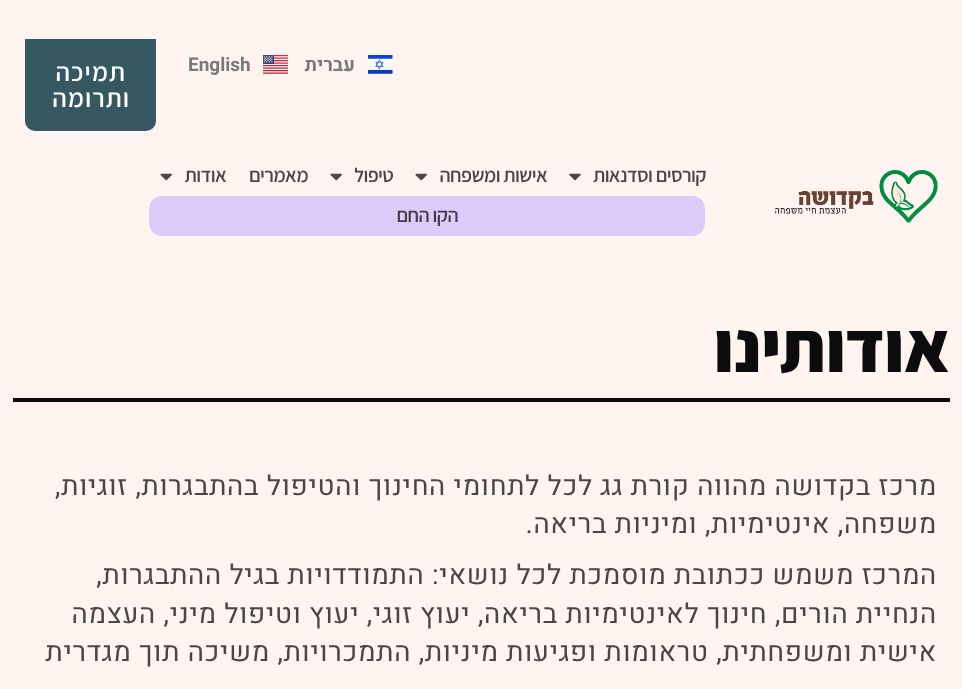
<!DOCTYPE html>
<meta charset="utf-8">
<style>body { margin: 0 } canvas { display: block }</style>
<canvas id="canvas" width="962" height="689"></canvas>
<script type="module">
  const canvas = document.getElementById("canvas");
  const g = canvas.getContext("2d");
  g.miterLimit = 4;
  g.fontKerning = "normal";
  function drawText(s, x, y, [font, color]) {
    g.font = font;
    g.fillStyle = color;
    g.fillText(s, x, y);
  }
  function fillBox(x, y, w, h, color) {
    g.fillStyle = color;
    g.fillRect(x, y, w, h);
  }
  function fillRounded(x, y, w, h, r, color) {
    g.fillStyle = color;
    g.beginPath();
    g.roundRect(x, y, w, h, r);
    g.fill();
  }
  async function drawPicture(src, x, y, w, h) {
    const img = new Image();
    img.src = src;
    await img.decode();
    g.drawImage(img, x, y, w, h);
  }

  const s1 = ["bold 19px Heebo", "#7A7A7A"];
  const s2 = ["600 26px Assistant", "#FFFFFF"];
  const s3 = ["600 20px Assistant", "#494645"];
  const s4 = ["600 20px Assistant", "#433D4A"];
  const s5 = ["800 71px Assistant", "#0C0C0C"];
  const s6 = ["27.5px Heebo", "#494645"];

  fillBox(0, 0, 962, 689, "#FFF4F0");
  await drawPicture("pic1.png", 368, 55, 25, 19);
  g.direction = "rtl";
  drawText("עברית", 355, 71, s1);
  await drawPicture("pic2.png", 263, 55, 25, 19);
  g.direction = "ltr";
  drawText("English", 188, 71, s1);
  g.fillStyle = "#365863";
  g.beginPath();
  g.roundRect(25, 39, 131, 92, [0, 0, 10, 10]);
  g.fill();
  g.letterSpacing = "1px";
  g.direction = "rtl";
  drawText("תמיכה", 126, 81, s2);
  drawText("ותרומה", 130, 107, s2);
  await drawPicture("pic3.png", 775, 170, 163, 53);
  g.letterSpacing = "-0.6px";
  drawText("קורסים וסדנאות", 706, 182, s3);
  await drawPicture("pic4.png", 569, 173, 12, 8);
  drawText("אישות ומשפחה", 547, 182, s3);
  await drawPicture("pic5.png", 415, 173, 12, 8);
  drawText("טיפול", 393, 182, s3);
  await drawPicture("pic5.png", 330, 173, 12, 8);
  drawText("מאמרים", 308, 182, s3);
  drawText("אודות", 226, 182, s3);
  await drawPicture("pic5.png", 160, 173, 12, 8);
  fillRounded(149, 196, 556, 40, 13, "#DECAF9");
  drawText("הקו החם", 458, 222, s4);
  g.letterSpacing = "0px";
  drawText("אודותינו", 950, 372, s5);
  fillBox(13, 398, 937, 4, "#0C0C0C");
  g.letterSpacing = "0.75px";
  drawText("מרכז בקדושה מהווה קורת גג לכל לתחומי החינוך והטיפול בהתבגרות, זוגיות,", 937, 495, s6);
  drawText("משפחה, אינטימיות, ומיניות בריאה.", 937, 533, s6);
  drawText("המרכז משמש ככתובת מוסמכת לכל נושאי: התמודדויות בגיל ההתבגרות,", 937, 584, s6);
  drawText("הנחיית הורים, חינוך לאינטימיות בריאה, יעוץ זוגי, יעוץ וטיפול מיני, העצמה", 937, 623, s6);
  drawText("אישית ומשפחתית, טראומות ופגיעות מיניות, התמכרויות, משיכה תוך מגדרית", 937, 661, s6);
</script>
